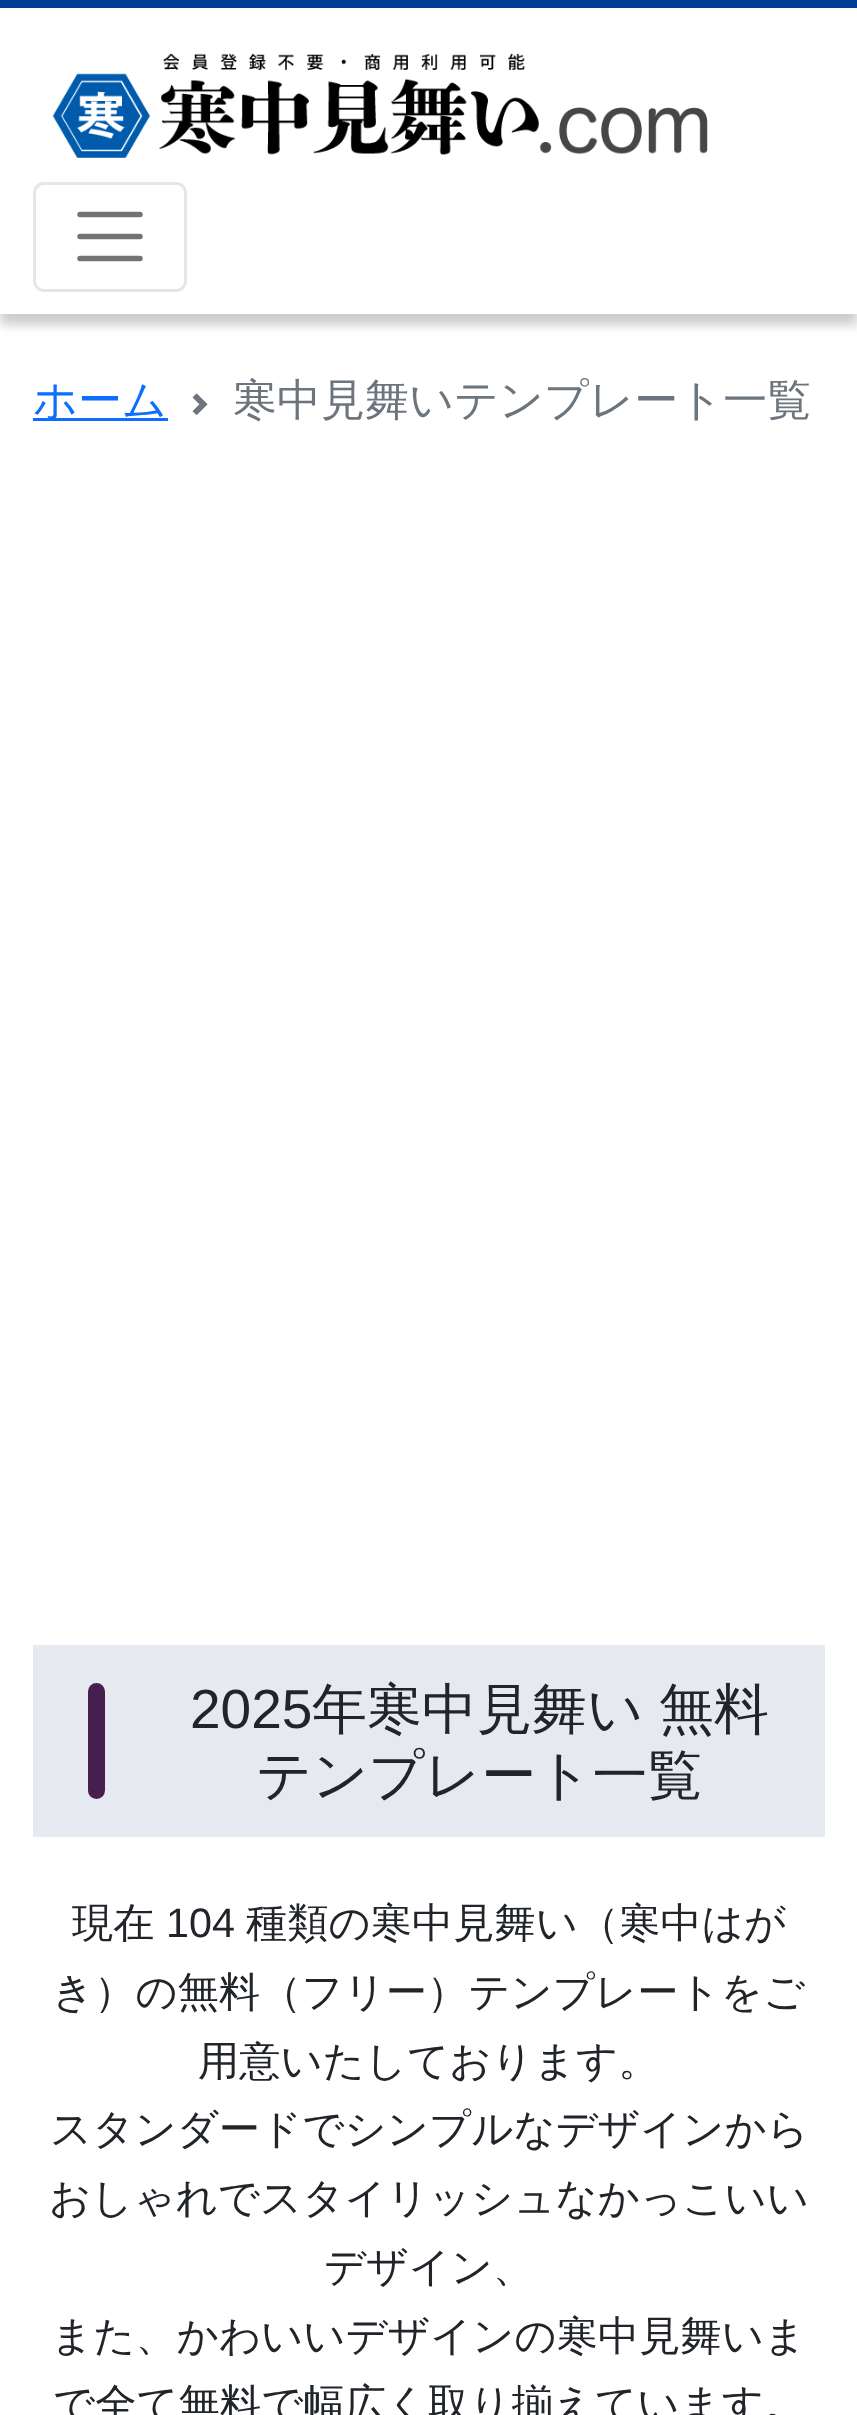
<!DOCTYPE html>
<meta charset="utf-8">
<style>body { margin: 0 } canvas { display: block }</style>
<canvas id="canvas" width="857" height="2415"></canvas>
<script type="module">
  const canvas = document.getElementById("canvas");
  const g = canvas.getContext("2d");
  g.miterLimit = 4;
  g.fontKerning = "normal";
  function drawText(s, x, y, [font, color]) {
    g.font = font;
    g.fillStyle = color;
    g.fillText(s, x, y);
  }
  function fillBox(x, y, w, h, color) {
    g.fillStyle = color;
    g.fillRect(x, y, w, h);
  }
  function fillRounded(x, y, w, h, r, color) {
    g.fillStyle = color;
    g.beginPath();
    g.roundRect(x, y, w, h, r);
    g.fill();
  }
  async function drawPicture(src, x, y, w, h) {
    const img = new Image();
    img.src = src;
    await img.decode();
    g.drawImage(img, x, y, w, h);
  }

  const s1 = ["500 44px WenQuanYi Zen Hei", "#0D6EFD"];
  const s2 = ["500 44px WenQuanYi Zen Hei", "#6C757D"];
  const s3 = ["55px Liberation Sans", "#212529"];
  const s4 = ["500 55px WenQuanYi Zen Hei", "#212529"];
  const s5 = ["500 41.25px WenQuanYi Zen Hei", "#212529"];
  const s6 = ["41.25px Liberation Sans", "#212529"];

  fillBox(0, 0, 857, 2415, "#FFFFFF");
  g.fillStyle = "rgba(0, 0, 0, 0.2)";
  g.filter = "blur(5.5px)";
  g.beginPath();
  g.rect(0, 11, 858, 314);
  g.fill();
  g.filter = "none";
  fillBox(0, 8, 857, 306, "#FFFFFF");
  fillBox(0, 0, 857, 8, "#003E95");
  await drawPicture("pic1.png", 52, 53, 656, 105);
  g.beginPath();
  g.roundRect(34.5, 183.5, 151, 107, 9.5);
  g.strokeStyle = "#E6E6E6";
  g.lineWidth = 3;
  g.stroke();
  g.beginPath();
  g.moveTo(80, 214.5);
  g.lineTo(140, 214.5);
  g.moveTo(80, 236.5);
  g.lineTo(140, 236.5);
  g.moveTo(80, 258.5);
  g.lineTo(140, 258.5);
  g.strokeStyle = "#737373";
  g.lineWidth = 5.5;
  g.lineCap = "round";
  g.stroke();
  fillBox(33, 418, 135, 3, "#0D6EFD");
  drawText("ホーム", 33, 415, s1);
  await drawPicture("pic2.png", 192, 393, 16, 22);
  drawText("寒中見舞いテンプレート一覧", 233, 415, s2);
  fillBox(33, 1645, 792, 192, "#E7E9F1");
  fillRounded(88, 1683, 17, 116, 8.5, "#461E50");
  drawText("2025", 190, 1728, s3);
  drawText("年寒中見舞い", 312, 1728, s4);
  drawText("無料", 659, 1728, s4);
  drawText("テンプレート一覧", 256, 1794, s4);
  drawText("現在", 72, 1937, s5);
  drawText("104", 166, 1937, s6);
  drawText("種類の寒中見舞い（寒中はが", 246, 1937, s5);
  drawText("き）の無料（フリー）テンプレートをご", 52, 2006, s5);
  drawText("用意いたしております。", 198, 2075, s5);
  drawText("スタンダードでシンプルなデザインから", 50, 2143, s5);
  drawText("おしゃれでスタイリッシュなかっこいい", 49, 2212, s5);
  drawText("デザイン、", 324, 2281, s5);
  drawText("また、かわいいデザインの寒中見舞いま", 51, 2350, s5);
  drawText("で全て無料で幅広く取り揃えています。", 53, 2418, s5);
</script>
